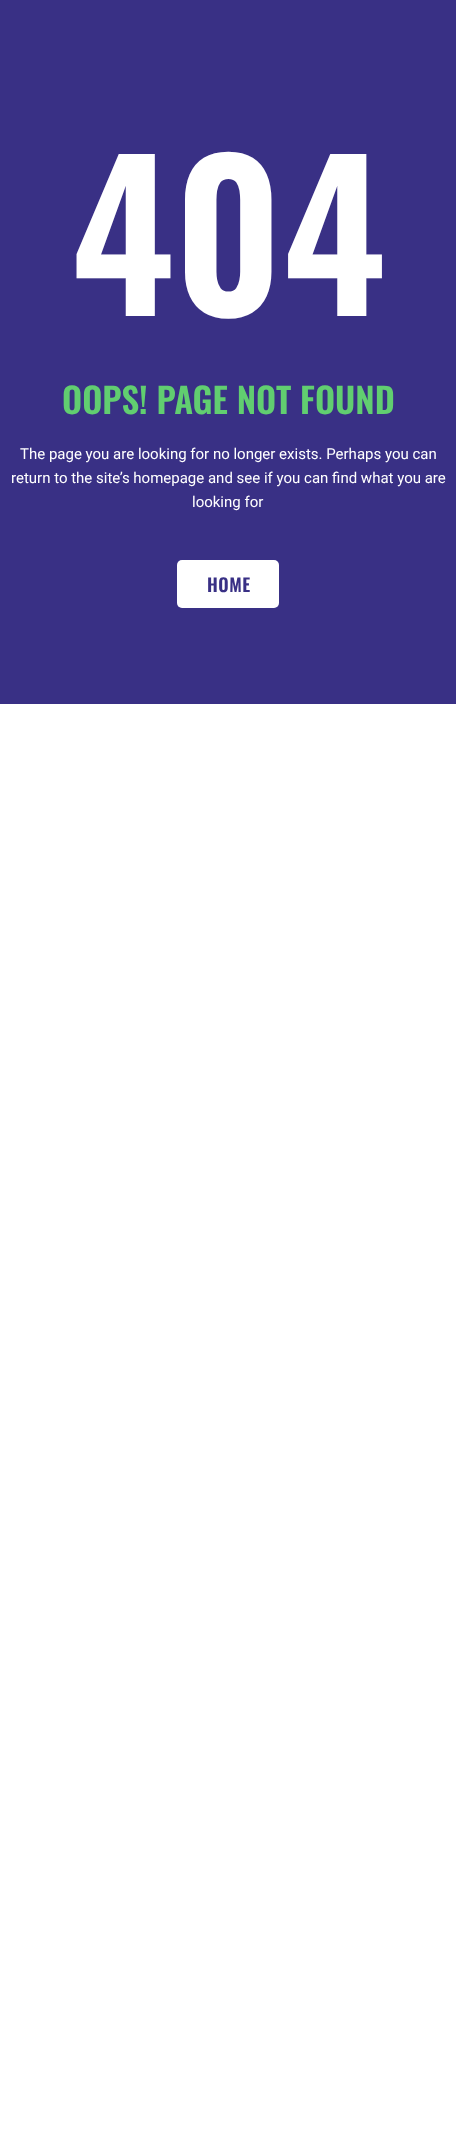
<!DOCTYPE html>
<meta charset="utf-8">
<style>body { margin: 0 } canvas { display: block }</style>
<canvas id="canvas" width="456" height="2144"></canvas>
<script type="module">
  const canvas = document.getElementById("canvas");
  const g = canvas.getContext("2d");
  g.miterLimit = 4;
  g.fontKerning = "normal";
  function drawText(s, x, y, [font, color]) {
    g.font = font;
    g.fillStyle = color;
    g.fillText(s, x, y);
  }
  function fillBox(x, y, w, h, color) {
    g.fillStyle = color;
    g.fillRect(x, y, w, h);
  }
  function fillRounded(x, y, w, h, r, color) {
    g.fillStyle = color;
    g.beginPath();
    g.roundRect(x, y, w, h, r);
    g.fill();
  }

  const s1 = ["600 200px Oswald", "#FFFFFF"];
  const s2 = ["600 35px Oswald", "#61CE70"];
  const s3 = ["15px Roboto", "#FFFFFF"];
  const s4 = ["600 18px Oswald", "#393085"];

  fillBox(0, 0, 456, 2144, "#FFFFFF");
  fillBox(0, 0, 456, 704, "#393085");
  drawText("404", 71, 316, s1);
  drawText("OOPS! PAGE NOT FOUND", 62, 414, s2);
  drawText("The page you are looking for no longer exists. Perhaps you can", 20, 459, s3);
  drawText("return to the site’s homepage and see if you can find what you are", 11, 483, s3);
  drawText("looking for", 192, 507, s3);
  fillRounded(177, 560, 102, 48, 5, "#FFFFFF");
  g.letterSpacing = "0.5px";
  drawText("HOME", 207, 592, s4);
</script>
